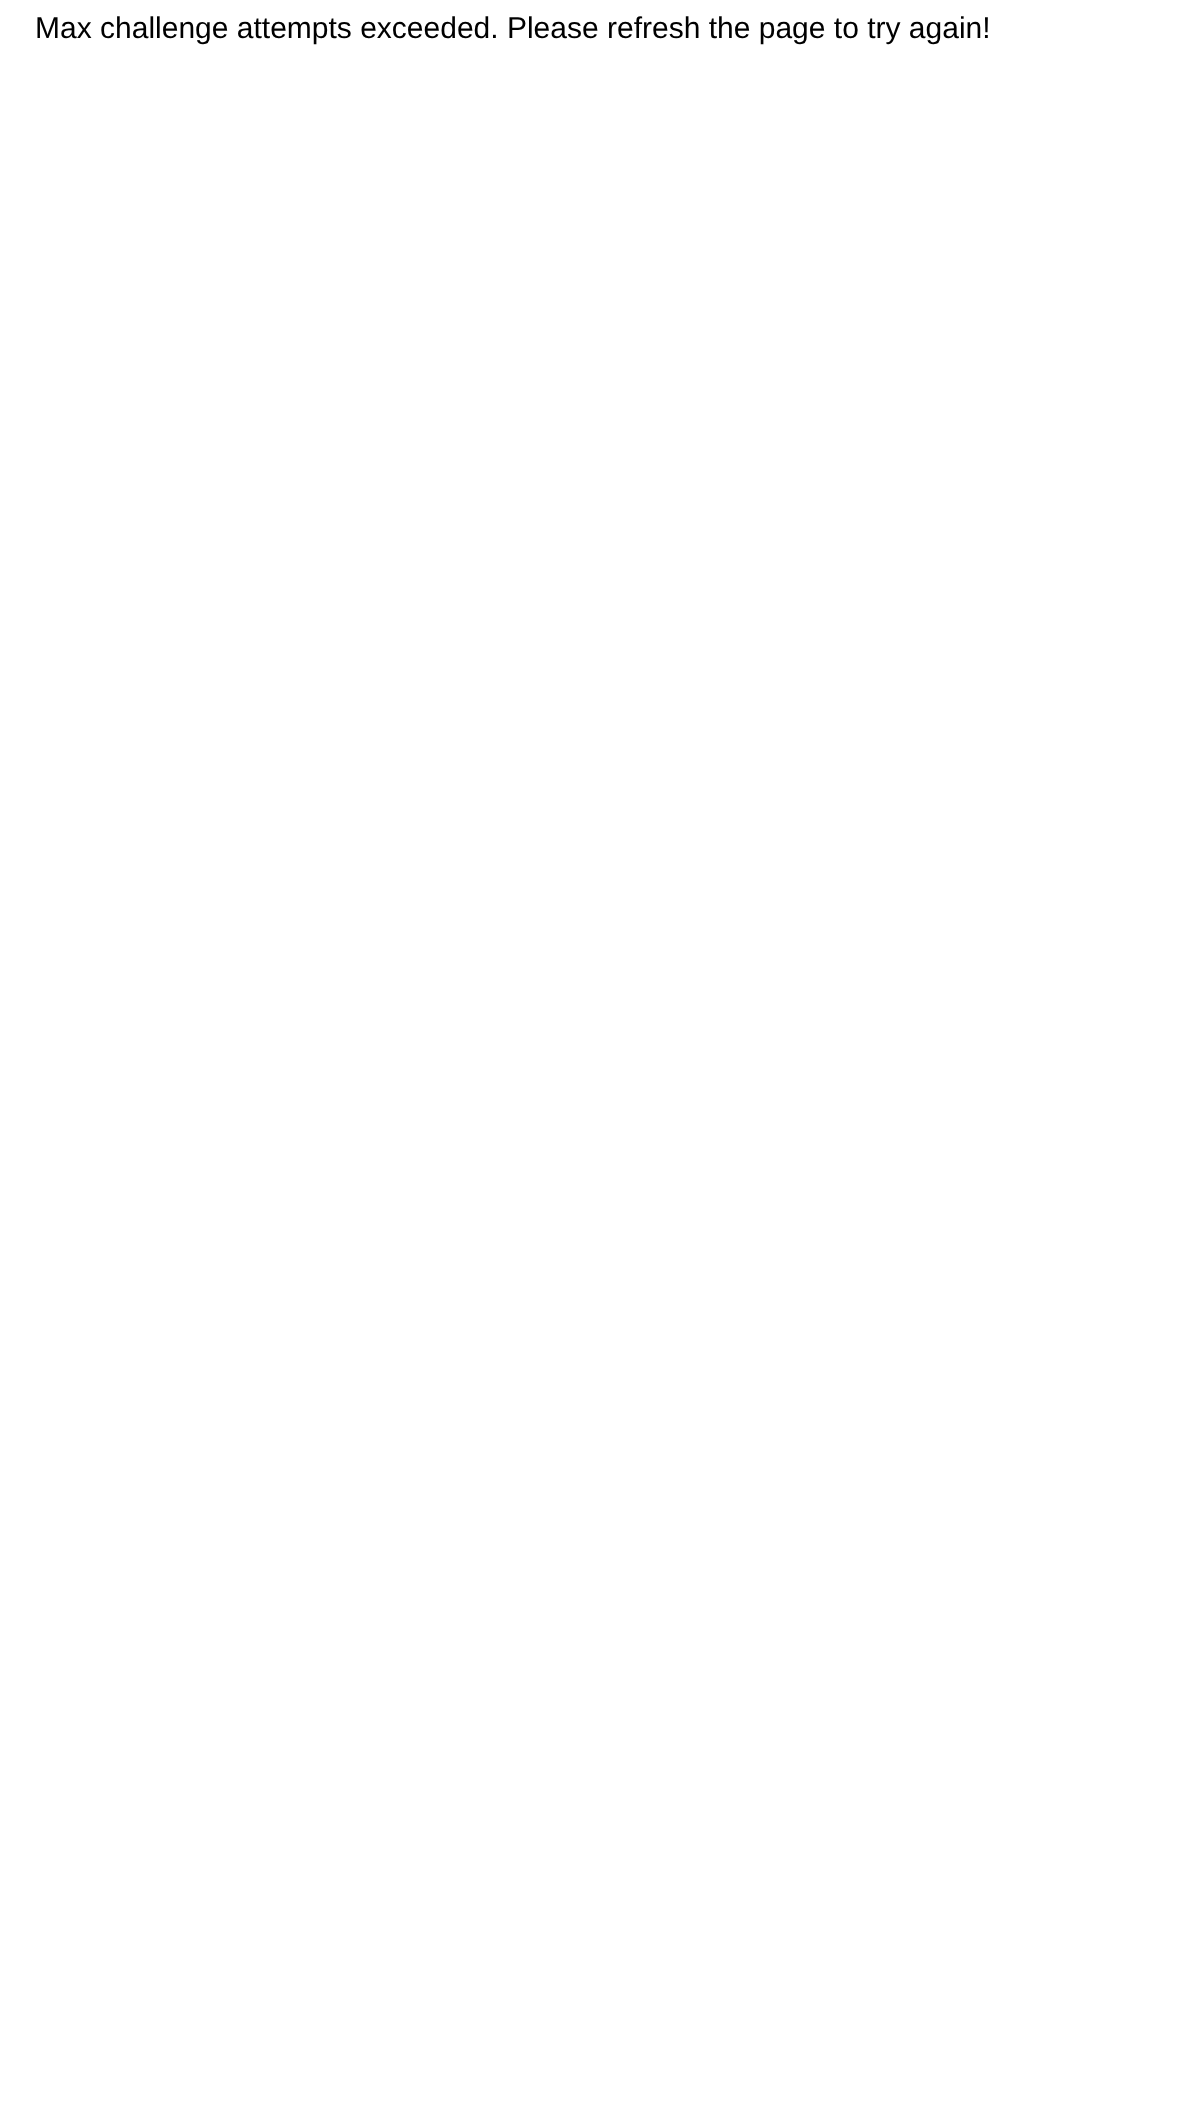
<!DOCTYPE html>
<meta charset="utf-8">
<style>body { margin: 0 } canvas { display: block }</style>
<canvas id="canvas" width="1179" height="2117"></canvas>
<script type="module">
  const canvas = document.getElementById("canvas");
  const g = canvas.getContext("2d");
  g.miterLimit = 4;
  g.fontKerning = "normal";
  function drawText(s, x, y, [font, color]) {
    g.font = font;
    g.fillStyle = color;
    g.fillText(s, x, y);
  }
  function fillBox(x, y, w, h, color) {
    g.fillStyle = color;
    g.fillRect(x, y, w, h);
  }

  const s1 = ["30px Liberation Sans", "#000000"];

  fillBox(0, 0, 1179, 2117, "#FFFFFF");
  drawText("Max challenge attempts exceeded. Please refresh the page to try again!", 35, 38, s1);
</script>
